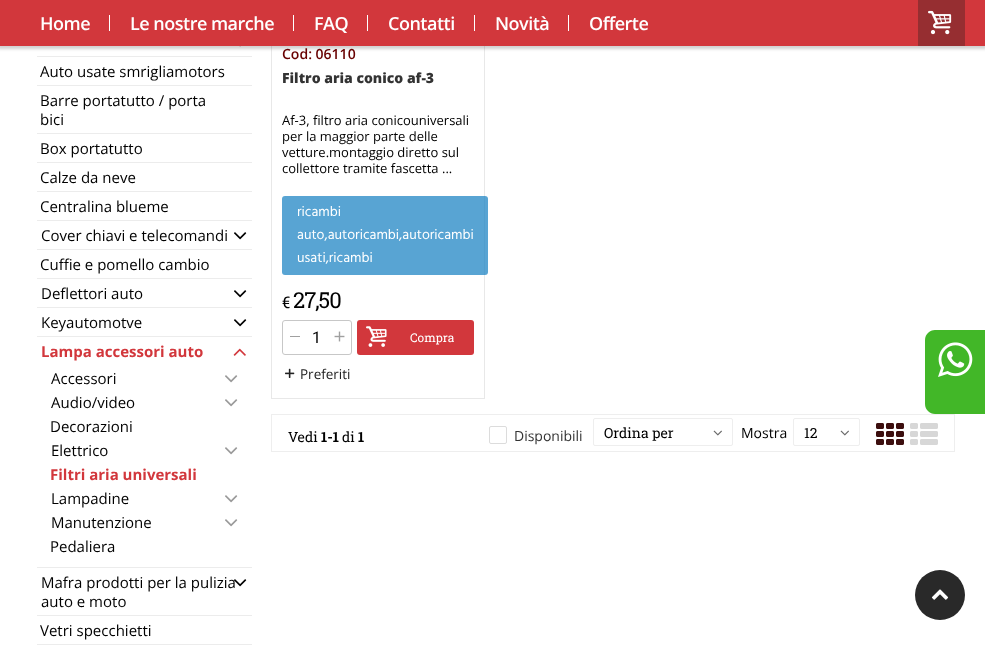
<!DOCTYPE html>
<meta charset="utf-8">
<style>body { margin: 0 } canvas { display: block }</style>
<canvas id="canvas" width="985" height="660"></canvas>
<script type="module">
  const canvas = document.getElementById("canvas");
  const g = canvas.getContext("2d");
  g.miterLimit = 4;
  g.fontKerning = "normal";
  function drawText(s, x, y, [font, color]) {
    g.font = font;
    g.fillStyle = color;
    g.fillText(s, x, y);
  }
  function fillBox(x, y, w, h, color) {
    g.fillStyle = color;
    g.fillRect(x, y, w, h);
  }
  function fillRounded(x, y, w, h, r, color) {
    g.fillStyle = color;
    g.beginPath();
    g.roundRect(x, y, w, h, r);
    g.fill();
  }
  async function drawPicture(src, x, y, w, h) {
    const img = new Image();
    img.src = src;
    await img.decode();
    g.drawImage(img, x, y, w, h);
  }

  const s1 = ["600 18px Open Sans", "#FFFFFF"];
  const s2 = ["15px Open Sans", "#000000"];
  const s3 = ["bold 15px Open Sans", "#D2373C"];
  const s4 = ["600 14px Open Sans", "#680000"];
  const s5 = ["800 14px Open Sans", "#333333"];
  const s6 = ["13px Open Sans", "#000000"];
  const s7 = ["14px Hind", "#FFFFFF"];
  const s8 = ["16px Roboto Slab", "#000000"];
  const s9 = ["22px Roboto Slab", "#000000"];
  const s10 = ["16px Roboto", "#000000"];
  const s11 = ["12px Roboto Slab", "#FFFFFF"];
  const s12 = ["13.5px Open Sans", "#222222"];
  const s13 = ["14px Roboto Slab", "#000000"];
  const s14 = ["bold 14px Roboto Slab", "#000000"];
  const s15 = ["14px Open Sans", "#333333"];
  const s16 = ["14px Open Sans", "#000000"];

  fillBox(0, 0, 985, 660, "#FFFFFF");
  await drawPicture("pic2.png", 239, 46, 2, 1);
  g.strokeStyle = "#E8E8E8";
  g.strokeRect(271.5, -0.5, 213, 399);
  g.fillStyle = "rgba(0, 0, 0, 0.18)";
  g.filter = "blur(1.5px)";
  g.beginPath();
  g.rect(-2, -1, 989, 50);
  g.fill();
  g.filter = "none";
  fillBox(0, 0, 985, 46, "#D2373C");
  g.letterSpacing = "-0.5px";
  drawText("Home", 40, 30, s1);
  fillBox(109, 15, 1, 16, "#FFFFFF");
  drawText("Le nostre marche", 130, 30, s1);
  fillBox(293, 15, 1, 16, "#FFFFFF");
  drawText("FAQ", 314, 30, s1);
  fillBox(367, 15, 1, 16, "#FFFFFF");
  drawText("Contatti", 388, 30, s1);
  fillBox(474, 15, 1, 16, "#FFFFFF");
  drawText("Novità", 495, 30, s1);
  fillBox(568, 15, 1, 16, "#FFFFFF");
  drawText("Offerte", 589, 30, s1);
  fillBox(918, 0, 47, 46, "#962E31");
  await drawPicture("pic1.png", 928, 10, 24, 25);
  fillBox(37, 56, 215, 1, "#ECECEC");
  g.letterSpacing = "0px";
  drawText("Auto usate smrigliamotors", 40, 77, s2);
  fillBox(37, 85, 215, 1, "#ECECEC");
  drawText("Barre portatutto / porta", 40, 106, s2);
  drawText("bici", 40, 125, s2);
  fillBox(37, 133, 215, 1, "#ECECEC");
  drawText("Box portatutto", 40, 154, s2);
  fillBox(37, 162, 215, 1, "#ECECEC");
  drawText("Calze da neve", 40, 183, s2);
  fillBox(37, 191, 215, 1, "#ECECEC");
  drawText("Centralina blueme", 40, 212, s2);
  fillBox(37, 220, 215, 1, "#ECECEC");
  drawText("Cover chiavi e telecomandi", 41, 241, s2);
  await drawPicture("pic3.png", 234, 232, 13, 8);
  fillBox(37, 249, 215, 1, "#ECECEC");
  drawText("Cuffie e pomello cambio", 40, 270, s2);
  fillBox(37, 278, 215, 1, "#ECECEC");
  drawText("Deflettori auto", 41, 299, s2);
  await drawPicture("pic3.png", 234, 290, 13, 8);
  fillBox(37, 307, 215, 1, "#ECECEC");
  drawText("Keyautomotve", 41, 328, s2);
  await drawPicture("pic3.png", 234, 319, 13, 8);
  fillBox(37, 336, 215, 1, "#ECECEC");
  drawText("Lampa accessori auto", 41, 357, s3);
  await drawPicture("pic4.png", 233, 348, 13, 8);
  drawText("Accessori", 51, 384, s2);
  await drawPicture("pic5.png", 225, 375, 13, 8);
  drawText("Audio/video", 51, 408, s2);
  await drawPicture("pic5.png", 225, 399, 13, 8);
  drawText("Decorazioni", 50, 432, s2);
  drawText("Elettrico", 51, 456, s2);
  await drawPicture("pic5.png", 225, 447, 13, 8);
  drawText("Filtri aria universali", 50, 480, s3);
  drawText("Lampadine", 51, 504, s2);
  await drawPicture("pic5.png", 225, 495, 13, 8);
  drawText("Manutenzione", 51, 528, s2);
  await drawPicture("pic5.png", 225, 519, 13, 8);
  drawText("Pedaliera", 50, 552, s2);
  fillBox(37, 567, 215, 1, "#ECECEC");
  await drawPicture("pic3.png", 234, 579, 13, 8);
  drawText("Mafra prodotti per la pulizia", 41, 588, s2);
  drawText("auto e moto", 41, 607, s2);
  fillBox(37, 615, 215, 1, "#ECECEC");
  drawText("Vetri specchietti", 40, 636, s2);
  fillBox(37, 644, 215, 1, "#ECECEC");
  drawText("Cod: 06110", 282, 59, s4);
  drawText("Filtro aria conico af-3", 282, 83, s5);
  drawText("Af-3, filtro aria conicouniversali", 282, 125, s6);
  drawText("per la maggior parte delle", 282, 141, s6);
  drawText("vetture.montaggio diretto sul", 282, 157, s6);
  drawText("collettore tramite fascetta ...", 282, 173, s6);
  fillRounded(282, 196, 206, 79, 3, "rgba(24, 129, 194, 0.72)");
  drawText("ricambi", 297, 216, s7);
  drawText("auto,autoricambi,autoricambi", 297, 239, s7);
  drawText("usati,ricambi", 297, 262, s7);
  g.letterSpacing = "-1px";
  drawText("€", 282, 308, s8);
  drawText("27,50", 293, 308, s9);
  g.beginPath();
  g.roundRect(282.5, 320.5, 69, 34, 2.5);
  g.strokeStyle = "#C7C7C7";
  g.stroke();
  fillBox(290, 336, 10, 1, "#A0A0A0");
  g.letterSpacing = "0px";
  drawText("1", 312, 343, s10);
  await drawPicture("pic6.png", 334, 331, 11, 11);
  fillRounded(357, 320, 117, 35, 3, "#D2373C");
  await drawPicture("pic7.png", 366, 326, 21, 21);
  drawText("Compra", 410, 342, s11);
  await drawPicture("pic8.png", 285, 368, 10, 10);
  drawText("Preferiti", 300, 379, s12);
  g.strokeStyle = "#EEEEEE";
  g.strokeRect(271.5, 414.5, 683, 37);
  drawText("Vedi", 288, 442, s13);
  drawText("1-1", 321, 442, s14);
  drawText("di", 342, 442, s13);
  drawText("1", 358, 442, s14);
  g.beginPath();
  g.roundRect(489.5, 426.5, 17, 17, 1.5);
  g.strokeStyle = "#DCDCDC";
  g.stroke();
  drawText("Disponibili", 514, 441, s15);
  g.beginPath();
  g.roundRect(593.5, 418.5, 139, 27, 1.5);
  g.strokeStyle = "#EEEEEE";
  g.stroke();
  drawText("Ordina per", 604, 438, s13);
  await drawPicture("pic9.png", 713, 430, 9, 6);
  drawText("Mostra", 741, 438, s16);
  g.beginPath();
  g.roundRect(793.5, 418.5, 66, 27, 1.5);
  g.stroke();
  drawText("12", 804, 438, s13);
  await drawPicture("pic9.png", 840, 430, 9, 6);
  await drawPicture("pic10.png", 876, 423, 28, 22);
  await drawPicture("pic11.png", 910, 423, 28, 22);
  g.fillStyle = "#42B728";
  g.beginPath();
  g.moveTo(935, 330);
  g.lineTo(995, 330);
  g.lineTo(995, 414);
  g.lineTo(935, 414);
  g.bezierCurveTo(929.5, 414, 925, 409.5, 925, 404);
  g.lineTo(925, 340);
  g.bezierCurveTo(925, 334.5, 929.5, 330, 935, 330);
  g.closePath();
  g.fill();
  await drawPicture("pic12.png", 938, 342, 35, 35);
  g.fillStyle = "#292929";
  g.beginPath();
  g.arc(940, 595, 25, 0, Math.PI * 2);
  g.fill();
  await drawPicture("pic13.png", 931, 589, 18, 11);
</script>
